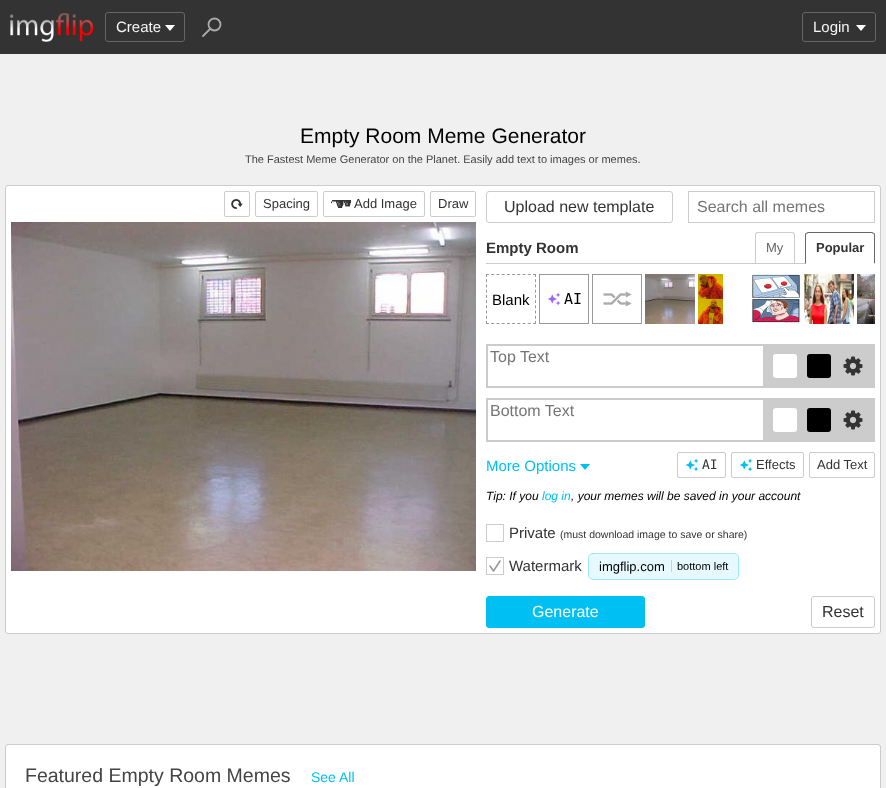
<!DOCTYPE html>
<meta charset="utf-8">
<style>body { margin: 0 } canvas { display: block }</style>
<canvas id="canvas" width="886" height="788"></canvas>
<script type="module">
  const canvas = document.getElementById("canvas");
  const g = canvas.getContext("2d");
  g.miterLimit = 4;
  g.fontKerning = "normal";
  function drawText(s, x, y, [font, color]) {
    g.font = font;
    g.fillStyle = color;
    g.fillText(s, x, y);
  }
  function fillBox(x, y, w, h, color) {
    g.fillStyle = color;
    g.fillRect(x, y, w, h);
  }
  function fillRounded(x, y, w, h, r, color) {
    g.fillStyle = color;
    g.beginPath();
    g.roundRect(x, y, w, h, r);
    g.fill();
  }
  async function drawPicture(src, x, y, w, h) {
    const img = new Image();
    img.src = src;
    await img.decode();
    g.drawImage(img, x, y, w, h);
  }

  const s1 = ["15px Liberation Sans", "#F5F5F5"];
  const s2 = ["21px Liberation Sans", "#000000"];
  const s3 = ["11px Liberation Sans", "#444444"];
  const s4 = ["13px Liberation Sans", "#333333"];
  const s5 = ["16px Liberation Sans", "#333333"];
  const s6 = ["16px Liberation Sans", "#757575"];
  const s7 = ["bold 15px Liberation Sans", "#333333"];
  const s8 = ["13px Liberation Sans", "#666666"];
  const s9 = ["bold 13px Liberation Sans", "#333333"];
  const s10 = ["15px Liberation Sans", "#000000"];
  const s11 = ["15px DejaVu Sans Mono", "#000000"];
  const s12 = ["15px Liberation Sans", "#00BFF3"];
  const s13 = ["13px DejaVu Sans Mono", "#333333"];
  const s14 = ["italic 12px Liberation Sans", "#000000"];
  const s15 = ["italic 12px Liberation Sans", "#00BFF3"];
  const s16 = ["15px Liberation Sans", "#333333"];
  const s17 = ["10.5px Liberation Sans", "#333333"];
  const s18 = ["13px Liberation Sans", "#000000"];
  const s19 = ["11px Liberation Sans", "#000000"];
  const s20 = ["16px Liberation Sans", "#FFFFFF"];
  const s21 = ["19.5px Liberation Sans", "#444444"];
  const s22 = ["14px Liberation Sans", "#00BFF3"];

  fillBox(0, 0, 886, 788, "#F0F0F0");
  fillBox(0, 0, 886, 54, "#333333");
  await drawPicture("pic1.png", 10, 12, 84, 30);
  g.beginPath();
  g.roundRect(105.5, 12.5, 79, 29, 2.5);
  g.strokeStyle = "#666666";
  g.stroke();
  drawText("Create", 116, 32, s1);
  g.fillStyle = "#FFFFFF";
  g.beginPath();
  g.moveTo(165, 25);
  g.lineTo(175, 25);
  g.lineTo(170, 31);
  g.closePath();
  g.fill();
  g.beginPath();
  g.moveTo(203, 36);
  g.lineTo(210.5, 28.5);
  g.strokeStyle = "#AAAAAA";
  g.lineWidth = 1.8;
  g.lineCap = "round";
  g.stroke();
  g.beginPath();
  g.arc(214.5, 24.5, 6, 0, Math.PI * 2);
  g.stroke();
  g.beginPath();
  g.roundRect(802.5, 12.5, 73, 29, 2.5);
  g.strokeStyle = "#666666";
  g.lineWidth = 1;
  g.stroke();
  drawText("Login", 813, 32, s1);
  g.fillStyle = "#FFFFFF";
  g.beginPath();
  g.moveTo(856, 25);
  g.lineTo(866, 25);
  g.lineTo(861, 31);
  g.closePath();
  g.fill();
  drawText("Empty Room Meme Generator", 300, 143, s2);
  drawText("The Fastest Meme Generator on the Planet. Easily add text to images or memes.", 245, 163, s3);
  g.fillStyle = "#FFFFFF";
  g.beginPath();
  g.roundRect(5.5, 185.5, 875, 448, 2.5);
  g.fill();
  g.strokeStyle = "#CCCCCC";
  g.stroke();
  g.beginPath();
  g.roundRect(224.5, 191.5, 25, 25, 1.5);
  g.stroke();
  await drawPicture("pic2.png", 231, 199, 12, 10);
  g.beginPath();
  g.roundRect(255.5, 191.5, 62, 25, 1.5);
  g.stroke();
  drawText("Spacing", 263, 208, s4);
  g.beginPath();
  g.roundRect(323.5, 191.5, 101, 25, 1.5);
  g.stroke();
  await drawPicture("pic3.png", 331, 200, 20, 8);
  drawText("Add Image", 354, 208, s4);
  g.beginPath();
  g.roundRect(430.5, 191.5, 45, 25, 1.5);
  g.stroke();
  drawText("Draw", 438, 208, s4);
  await drawPicture("pic4.png", 11, 222, 465, 349);
  g.beginPath();
  g.roundRect(486.5, 191.5, 186, 31, 2.5);
  g.stroke();
  drawText("Upload new template", 504, 212, s5);
  g.strokeRect(688.5, 191.5, 186, 31);
  drawText("Search all memes", 697, 212, s6);
  fillBox(486, 263, 389, 1, "#CCCCCC");
  drawText("Empty Room", 486, 253, s7);
  g.fillStyle = "#CCCCCC";
  g.beginPath();
  g.moveTo(758, 232);
  g.lineTo(792, 232);
  g.bezierCurveTo(794, 232, 795, 233, 795, 235);
  g.lineTo(795, 264);
  g.lineTo(755, 264);
  g.lineTo(755, 235);
  g.bezierCurveTo(755, 233, 756, 232, 758, 232);
  g.closePath();
  g.moveTo(758, 233);
  g.lineTo(792, 233);
  g.bezierCurveTo(793, 233, 794, 234, 794, 235);
  g.lineTo(794, 264);
  g.lineTo(756, 264);
  g.lineTo(756, 235);
  g.bezierCurveTo(756, 234, 757, 233, 758, 233);
  g.closePath();
  g.fill("evenodd");
  drawText("My", 766, 252, s8);
  g.beginPath();
  g.moveTo(808, 232);
  g.lineTo(806, 233);
  g.lineTo(807, 234);
  g.lineTo(808, 233);
  g.lineTo(872, 233);
  g.lineTo(873, 234);
  g.lineTo(874, 233);
  g.lineTo(872, 232);
  g.closePath();
  g.fill();
  g.beginPath();
  g.moveTo(875, 264);
  g.lineTo(875, 235);
  g.bezierCurveTo(875, 234, 875, 233, 874, 233);
  g.lineTo(873.5, 233.5);
  g.lineTo(874, 235);
  g.lineTo(874, 263);
  g.closePath();
  g.fill();
  g.fillStyle = "#FFFFFF";
  g.beginPath();
  g.moveTo(875, 264);
  g.lineTo(874, 263);
  g.lineTo(806, 263);
  g.lineTo(805, 264);
  g.closePath();
  g.fill();
  g.fillStyle = "#666666";
  g.beginPath();
  g.moveTo(805, 264);
  g.lineTo(806, 263);
  g.lineTo(806, 235);
  g.lineTo(806.5, 233.5);
  g.lineTo(806, 233);
  g.bezierCurveTo(805, 233, 805, 234, 805, 235);
  g.closePath();
  g.fill();
  drawText("Popular", 816, 252, s9);
  g.beginPath();
  g.moveTo(486, 274.5);
  g.lineTo(536, 274.5);
  g.moveTo(535.5, 274);
  g.lineTo(535.5, 324);
  g.moveTo(486, 323.5);
  g.lineTo(536, 323.5);
  g.moveTo(486.5, 274);
  g.lineTo(486.5, 324);
  g.strokeStyle = "#999999";
  g.lineCap = "butt";
  g.setLineDash([3, 2.22]);
  g.stroke();
  drawText("Blank", 492, 305, s10);
  g.setLineDash([]);
  g.strokeRect(539.5, 274.5, 49, 49);
  await drawPicture("pic5.png", 547, 292, 14, 14);
  drawText("AI", 564, 304, s11);
  g.strokeRect(592.5, 274.5, 49, 49);
  await drawPicture("pic6.png", 603, 291, 29, 16);
  await drawPicture("pic7.png", 645, 274, 50, 50);
  await drawPicture("pic8.png", 698, 274, 50, 50);
  await drawPicture("pic9.png", 751, 274, 50, 50);
  await drawPicture("pic10.png", 804, 274, 50, 50);
  await drawPicture("pic11.png", 857, 274, 18, 50);
  g.strokeStyle = "#CCCCCC";
  g.lineWidth = 2;
  g.strokeRect(487, 345, 277, 42);
  drawText("Top Text", 490, 362, s6);
  fillBox(765, 344, 110, 44, "#CCCCCC");
  fillRounded(773, 354, 24, 24, 3, "#FFFFFF");
  fillRounded(807, 354, 24, 24, 3, "#000000");
  await drawPicture("pic12.png", 843, 356, 20, 20);
  g.strokeRect(487, 399, 277, 42);
  drawText("Bottom Text", 490, 416, s6);
  fillBox(765, 398, 110, 44, "#CCCCCC");
  fillRounded(773, 408, 24, 24, 3, "#FFFFFF");
  fillRounded(807, 408, 24, 24, 3, "#000000");
  await drawPicture("pic12.png", 843, 410, 20, 20);
  drawText("More Options", 486, 471, s12);
  g.beginPath();
  g.moveTo(580, 464);
  g.lineTo(590, 464);
  g.lineTo(585, 470);
  g.closePath();
  g.fill();
  g.beginPath();
  g.roundRect(677.5, 452.5, 48, 25, 1.5);
  g.lineWidth = 1;
  g.stroke();
  await drawPicture("pic13.png", 685, 458, 14, 14);
  drawText("AI", 702, 469, s13);
  g.beginPath();
  g.roundRect(731.5, 452.5, 72, 25, 1.5);
  g.stroke();
  await drawPicture("pic13.png", 739, 458, 14, 14);
  drawText("Effects", 756, 469, s4);
  g.beginPath();
  g.roundRect(809.5, 452.5, 65, 25, 1.5);
  g.stroke();
  drawText("Add Text", 817, 469, s4);
  drawText("Tip: If you", 486, 500, s14);
  drawText("log in", 542, 500, s15);
  drawText(", your memes will be saved in your account", 571, 500, s14);
  g.strokeRect(486.5, 524.5, 17, 17);
  drawText("Private", 509, 538, s16);
  drawText("(must download image to save or share)", 560, 538, s17);
  g.strokeRect(486.5, 557.5, 17, 17);
  g.beginPath();
  g.moveTo(490, 566);
  g.lineTo(493.5, 571);
  g.lineTo(500, 561);
  g.strokeStyle = "#999999";
  g.lineWidth = 1.6;
  g.lineCap = "round";
  g.lineJoin = "round";
  g.stroke();
  drawText("Watermark", 509, 571, s16);
  fillRounded(588, 553, 151, 27, 5, "#E6F9FE");
  g.beginPath();
  g.roundRect(588.5, 553.5, 150, 26, 4.5);
  g.strokeStyle = "rgba(0, 191, 243, 0.3)";
  g.lineWidth = 1;
  g.lineJoin = "miter";
  g.stroke();
  drawText("imgflip.com", 599, 571, s18);
  fillBox(671, 560, 1, 12, "#C4D4D8");
  drawText("bottom left", 677, 570, s19);
  g.fillStyle = "#00BFF3";
  g.beginPath();
  g.roundRect(486.5, 596.5, 158, 31, 2.5);
  g.fill();
  g.strokeStyle = "#00BFF3";
  g.stroke();
  drawText("Generate", 532, 617, s20);
  g.beginPath();
  g.roundRect(811.5, 596.5, 63, 31, 2.5);
  g.strokeStyle = "#CCCCCC";
  g.stroke();
  drawText("Reset", 822, 617, s5);
  g.fillStyle = "#FFFFFF";
  g.beginPath();
  g.roundRect(5.5, 744.5, 875, 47, 2.5);
  g.fill();
  g.stroke();
  drawText("Featured Empty Room Memes", 25, 782, s21);
  drawText("See All", 311, 782, s22);
</script>
